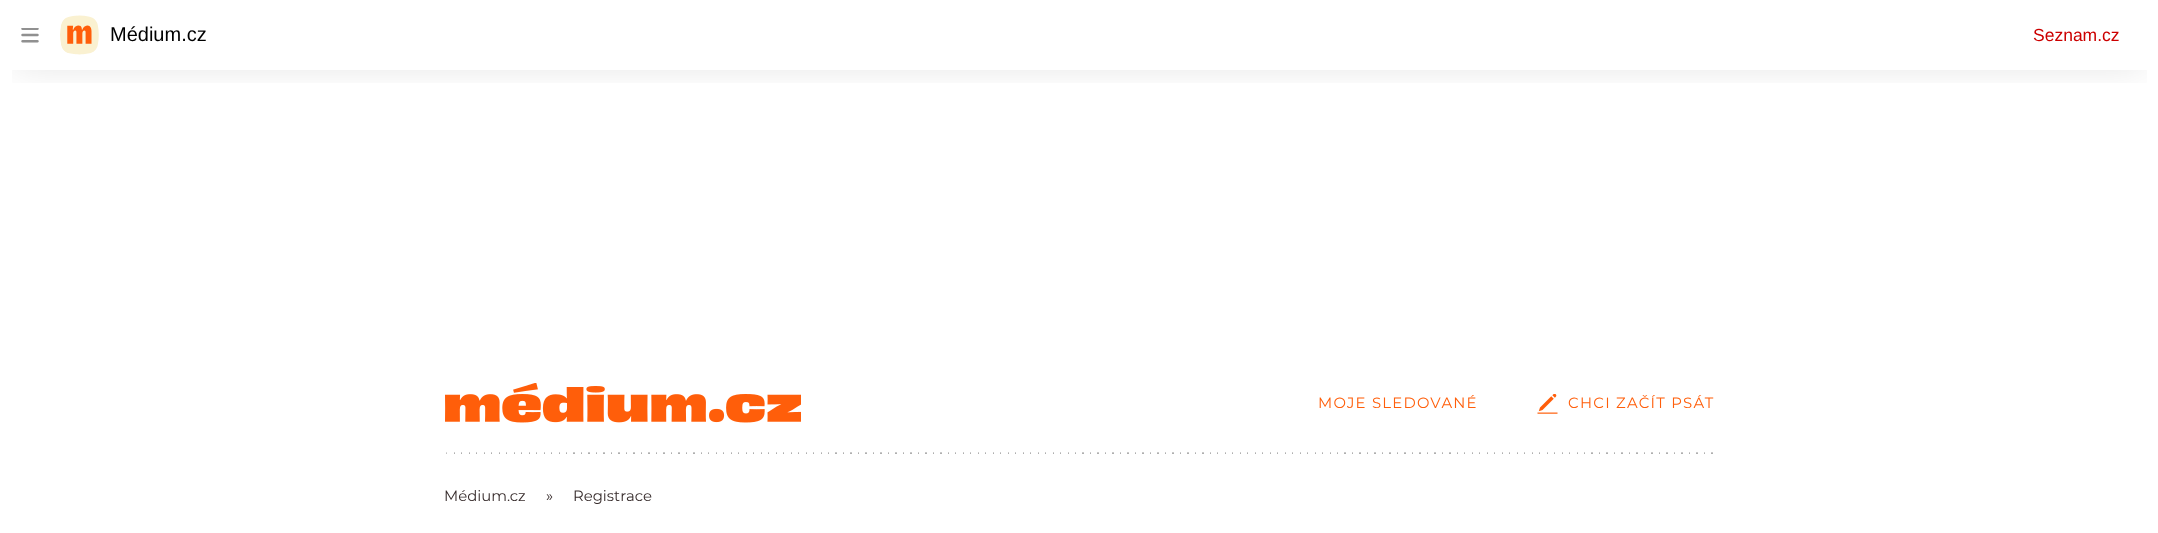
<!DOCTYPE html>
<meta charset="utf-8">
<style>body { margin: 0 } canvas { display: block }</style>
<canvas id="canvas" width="2158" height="533"></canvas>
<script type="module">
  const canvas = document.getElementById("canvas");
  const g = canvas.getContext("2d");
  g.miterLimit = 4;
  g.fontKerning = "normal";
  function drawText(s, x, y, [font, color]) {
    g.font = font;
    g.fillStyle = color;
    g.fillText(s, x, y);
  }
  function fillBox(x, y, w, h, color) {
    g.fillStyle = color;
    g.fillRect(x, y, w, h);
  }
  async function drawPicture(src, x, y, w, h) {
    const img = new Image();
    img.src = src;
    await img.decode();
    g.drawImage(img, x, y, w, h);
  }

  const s1 = ["20px Liberation Sans", "#000000"];
  const s2 = ["17.5px Liberation Sans", "#CC0000"];
  const s3 = ["15px Montserrat", "#FF5E0A"];
  const s4 = ["15px Montserrat", "#372C2C"];

  fillBox(0, 0, 2158, 533, "#FFFFFF");
  g.save();
  g.beginPath();
  g.rect(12, 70, 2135, 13);
  g.clip();
  g.fillStyle = "rgba(0, 0, 0, 0.12)";
  g.filter = "blur(19px)";
  g.beginPath();
  g.rect(15, 25, 2129, 40);
  g.fill();
  g.filter = "none";
  g.restore();
  await drawPicture("pic1.png", 21, 28, 18, 15);
  await drawPicture("pic2.png", 60, 15, 39, 40);
  drawText("Médium.cz", 110, 41, s1);
  drawText("Seznam.cz", 2033, 41, s2);
  await drawPicture("pic3.png", 445, 383, 356, 40);
  g.letterSpacing = "1.25px";
  drawText("MOJE SLEDOVANÉ", 1318, 408, s3);
  await drawPicture("pic4.png", 1537, 394, 21, 20);
  drawText("CHCI ZAČÍT PSÁT", 1568, 408, s3);
  await drawPicture("pic5.png", 446, 452, 1267, 2);
  g.letterSpacing = "0px";
  drawText("Médium.cz", 444, 501, s4);
  drawText("»", 546, 501, s4);
  drawText("Registrace", 573, 501, s4);
</script>
